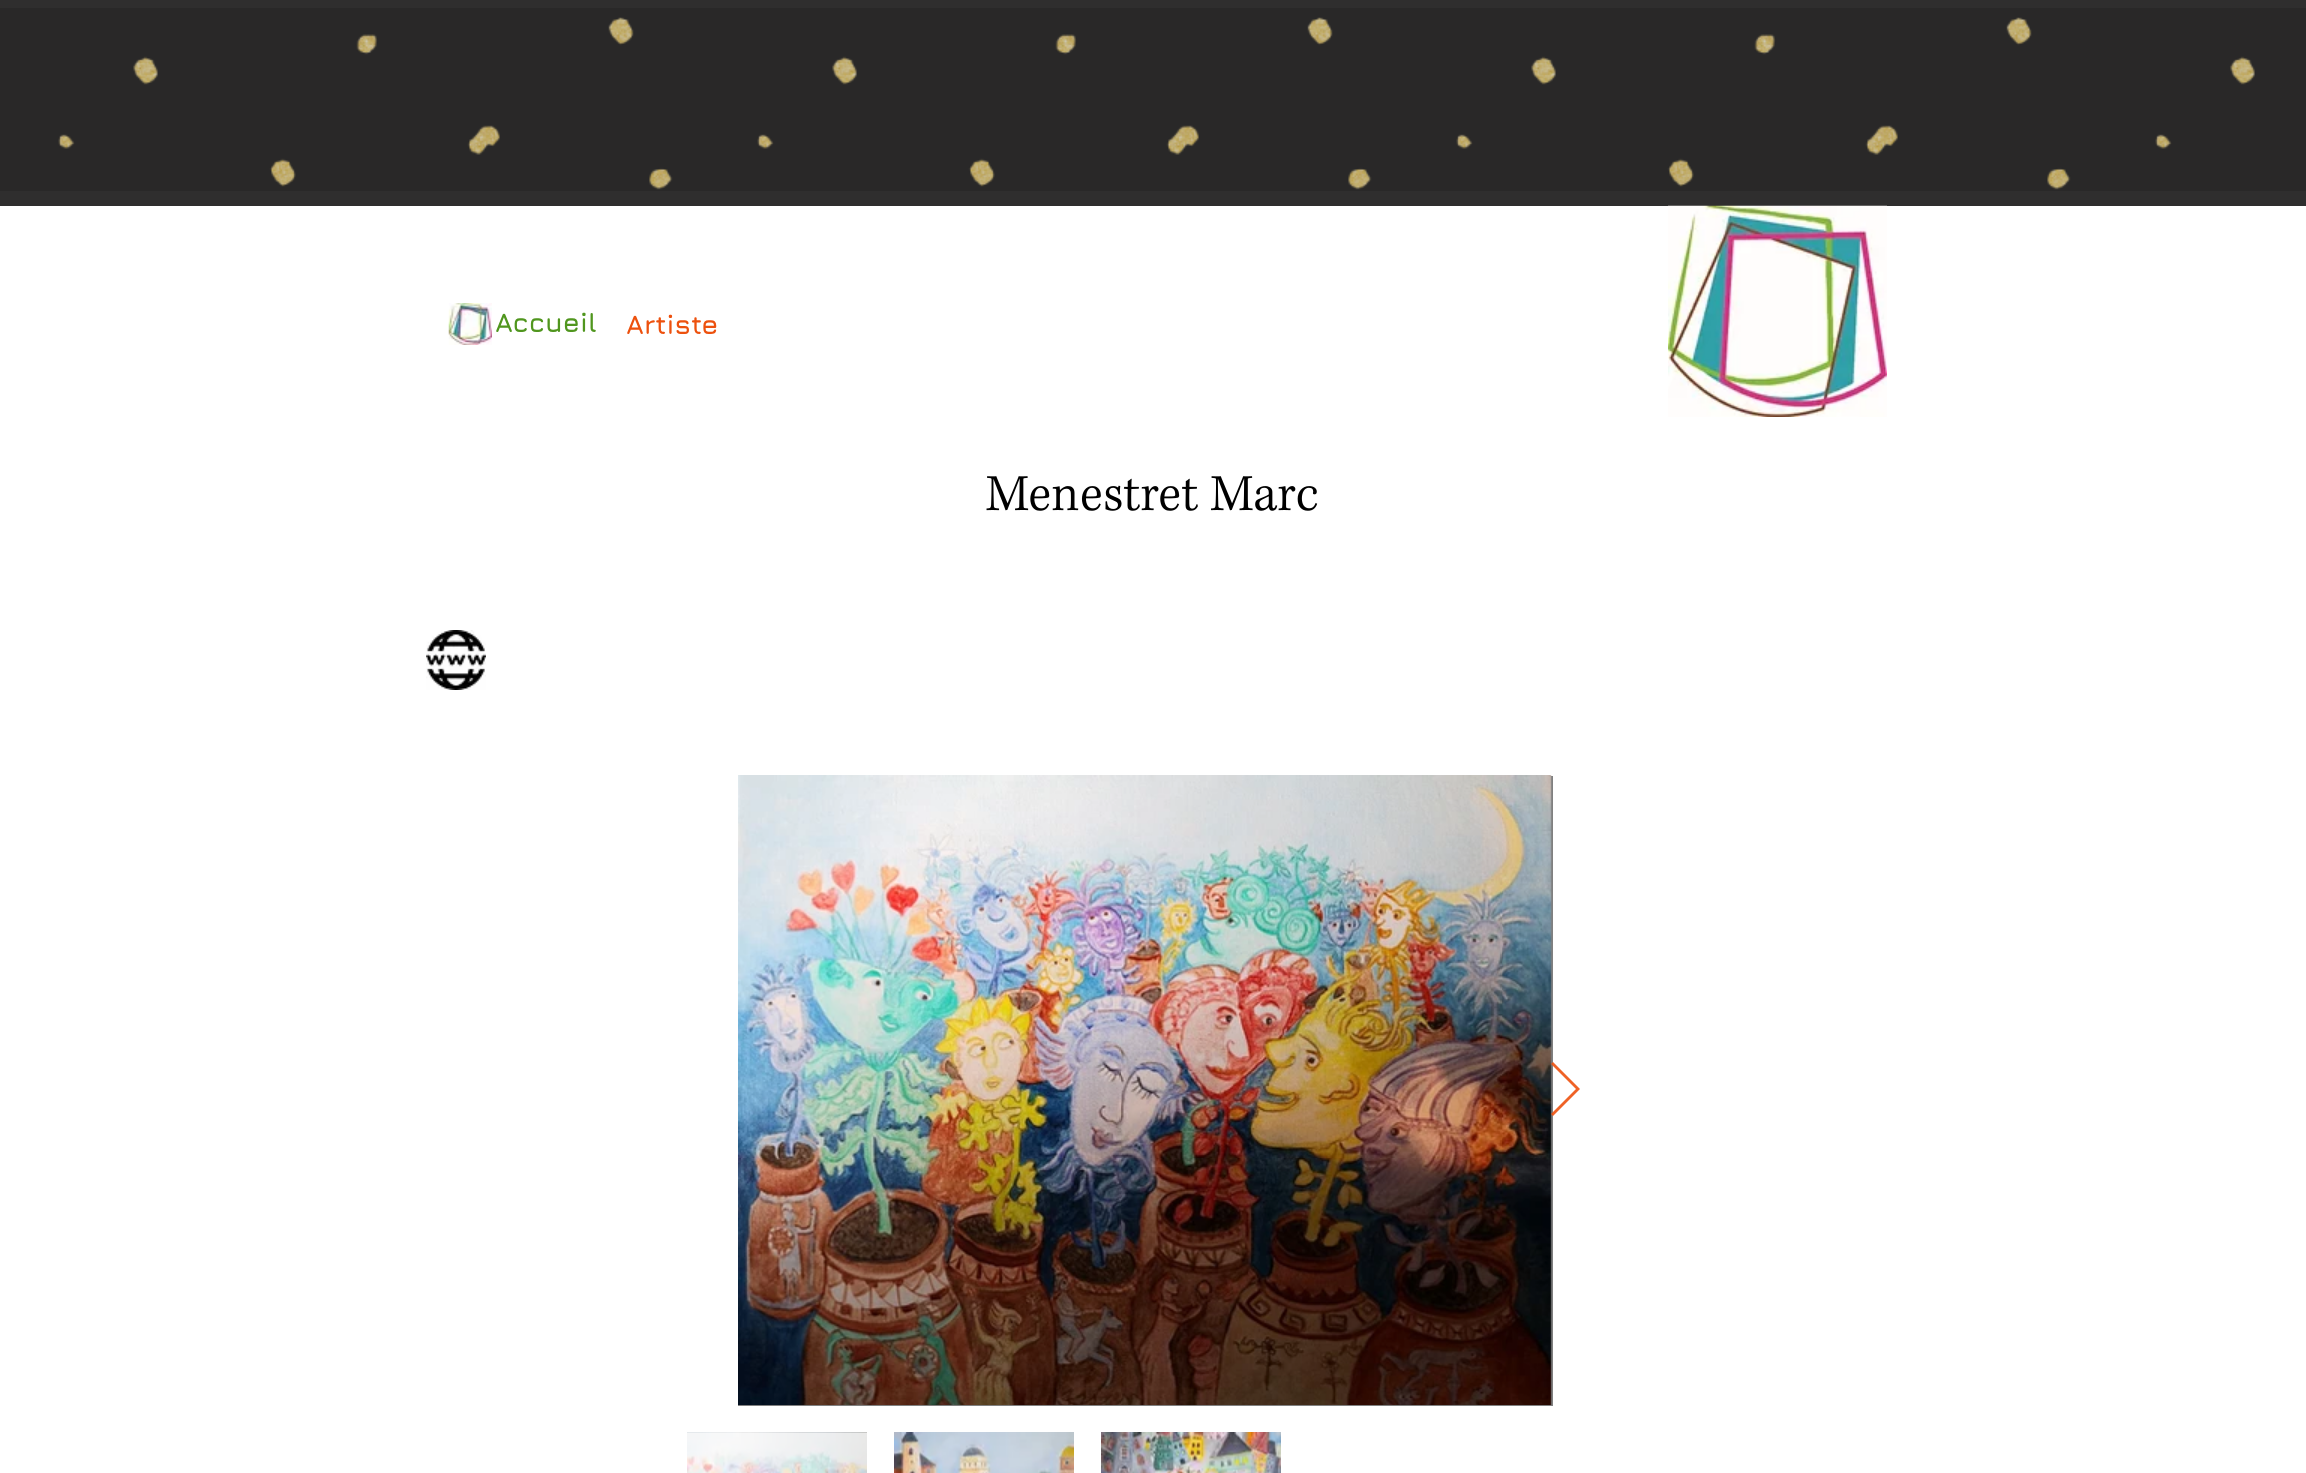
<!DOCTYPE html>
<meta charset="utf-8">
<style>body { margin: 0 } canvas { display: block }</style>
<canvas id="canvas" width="2306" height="1473"></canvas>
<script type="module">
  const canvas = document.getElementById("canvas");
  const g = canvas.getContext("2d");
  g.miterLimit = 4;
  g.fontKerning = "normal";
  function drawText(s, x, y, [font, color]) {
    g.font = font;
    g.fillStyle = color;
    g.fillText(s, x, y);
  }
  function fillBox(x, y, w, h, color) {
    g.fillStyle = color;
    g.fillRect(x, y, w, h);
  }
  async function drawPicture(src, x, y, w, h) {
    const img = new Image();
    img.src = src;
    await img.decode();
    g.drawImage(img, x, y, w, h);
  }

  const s1 = ["bold 27px Jura", "#50961E"];
  const s2 = ["bold 27px Jura", "#ED510E"];

  fillBox(0, 0, 2306, 1473, "#FFFFFF");
  fillBox(0, 0, 2306, 206, "#2F2E2E");
  fillBox(0, 8, 2306, 183, "#292828");
  await drawPicture("pic1.png", 58, 17, 2197, 173);
  await drawPicture("pic2.png", 448, 303, 44, 42);
  drawText("Accueil", 495, 332, s1);
  drawText("Artiste", 626, 334, s2);
  await drawPicture("pic3.png", 1668, 205, 219, 212);
  await drawPicture("pic4.png", 986, 476, 332, 35);
  await drawPicture("pic5.png", 426, 630, 60, 60);
  fillBox(738, 776, 815, 630, "#808080");
  await drawPicture("pic6.png", 738, 775, 814, 630);
  g.fillStyle = "rgba(237, 81, 14, 0.9)";
  g.beginPath();
  g.moveTo(1551, 1064);
  g.lineTo(1553, 1062);
  g.lineTo(1580, 1089);
  g.lineTo(1553, 1116);
  g.lineTo(1551, 1114);
  g.lineTo(1576, 1089);
  g.closePath();
  g.fill();
  await drawPicture("pic7.png", 687, 1432, 180, 41);
  await drawPicture("pic8.png", 894, 1432, 180, 41);
  await drawPicture("pic9.png", 1101, 1432, 180, 41);
</script>
